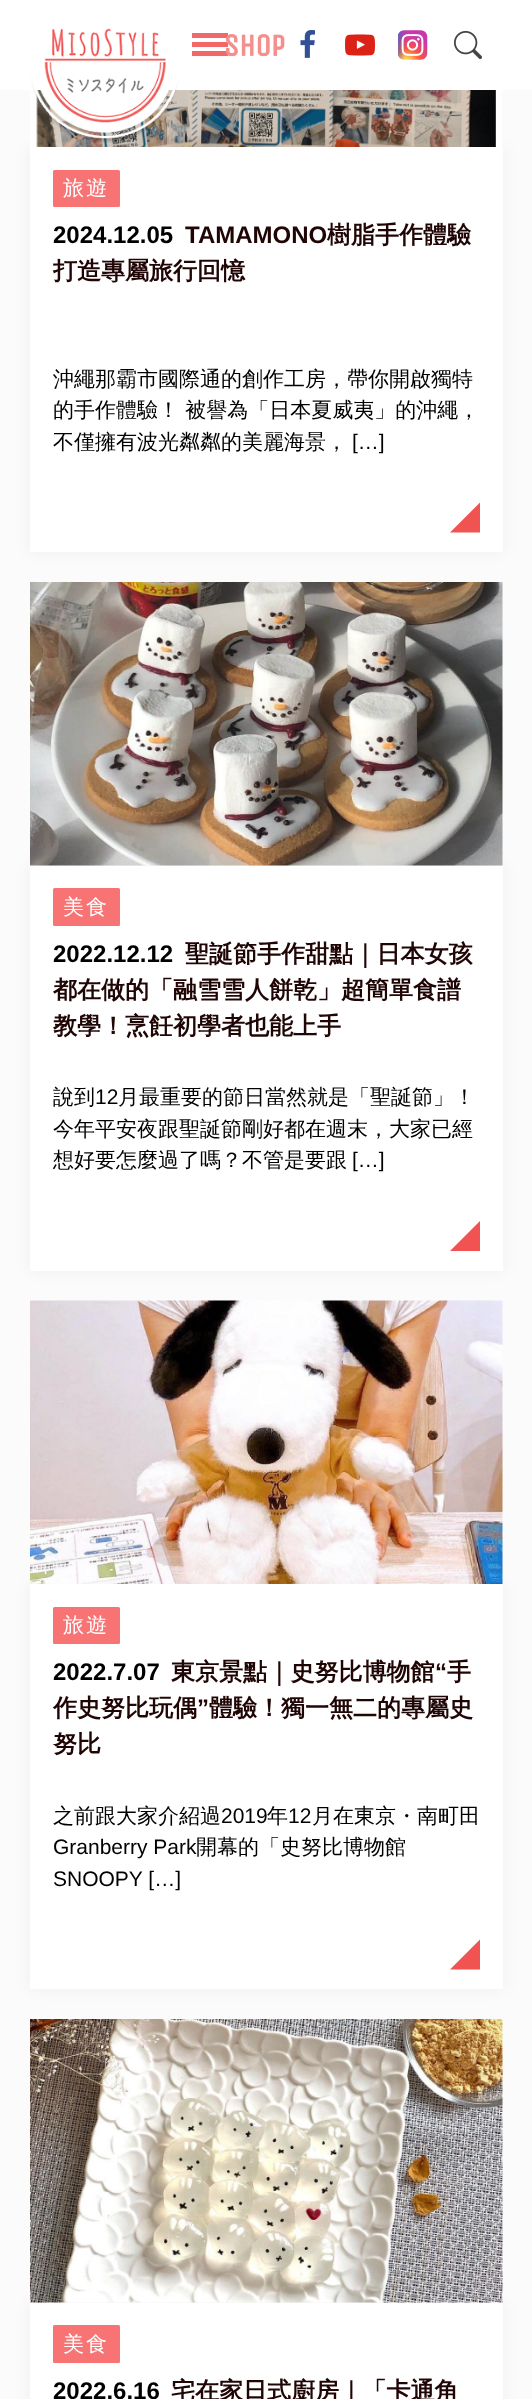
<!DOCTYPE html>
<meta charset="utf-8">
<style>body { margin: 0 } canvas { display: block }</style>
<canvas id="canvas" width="532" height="2399"></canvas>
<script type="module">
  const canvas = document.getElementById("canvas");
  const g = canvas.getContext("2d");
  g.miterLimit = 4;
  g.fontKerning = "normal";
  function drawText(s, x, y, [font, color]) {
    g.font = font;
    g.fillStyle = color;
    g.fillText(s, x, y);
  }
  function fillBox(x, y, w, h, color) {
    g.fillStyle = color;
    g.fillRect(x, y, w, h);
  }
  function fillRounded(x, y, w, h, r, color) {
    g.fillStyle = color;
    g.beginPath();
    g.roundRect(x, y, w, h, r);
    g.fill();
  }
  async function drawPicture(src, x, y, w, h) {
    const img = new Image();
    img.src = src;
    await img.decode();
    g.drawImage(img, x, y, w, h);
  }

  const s1 = ["500 21px WenQuanYi Zen Hei", "#FFFFFF"];
  const s2 = ["bold 24px Liberation Sans", "#000000"];
  const s3 = ["bold 24px Liberation Sans", "#200505"];
  const s4 = ["bold 24px WenQuanYi Zen Hei", "#200505"];
  const s5 = ["500 21px WenQuanYi Zen Hei", "#000000"];
  const s6 = ["21px Liberation Sans", "#000000"];

  fillBox(0, 0, 532, 2399, "#FBFBFB");
  fillBox(0, 0, 532, 90, "#FFFFFF");
  g.fillStyle = "rgba(0, 0, 0, 0.05)";
  g.filter = "blur(7.5px)";
  g.beginPath();
  g.rect(30, 147, 473, 405);
  g.fill();
  g.filter = "none";
  await drawPicture("pic7.png", 30, 90, 472, 57);
  await drawPicture("pic1.png", 31, 28, 148, 115);
  fillBox(192, 33, 36, 5, "#F26767");
  fillBox(192, 42, 36, 5, "#F26767");
  fillBox(192, 51, 36, 5, "#F26767");
  await drawPicture("pic2.png", 225, 34, 60, 23);
  await drawPicture("pic3.png", 300, 30, 15, 28);
  await drawPicture("pic4.png", 345, 34, 30, 22);
  await drawPicture("pic5.png", 398, 30, 30, 30);
  await drawPicture("pic6.png", 453, 30, 29, 30);
  fillBox(30, 147, 473, 405, "#FFFFFF");
  fillRounded(53, 170, 67, 37, 1.5, "#F87474");
  g.letterSpacing = "2px";
  drawText("旅遊", 63, 195, s1);
  g.letterSpacing = "0px";
  drawText("2024.12.05", 53, 243, s2);
  drawText("TAMAMONO", 185, 243, s3);
  drawText("樹脂手作體驗", 327, 243, s4);
  drawText("打造專屬旅行回憶", 53, 279, s4);
  drawText("沖繩那霸市國際通的創作工房，帶你開啟獨特", 53, 386, s5);
  drawText("的手作體驗！ 被譽為「日本夏威夷」的沖繩，", 53, 417, s5);
  drawText("不僅擁有波光粼粼的美麗海景，", 53, 449, s5);
  drawText("[…]", 352, 449, s6);
  g.fillStyle = "#F15252";
  g.beginPath();
  g.moveTo(480, 532.5);
  g.lineTo(450, 532.5);
  g.lineTo(480, 502.5);
  g.closePath();
  g.fill();
  g.fillStyle = "rgba(0, 0, 0, 0.05)";
  g.filter = "blur(7.5px)";
  g.beginPath();
  g.rect(30, 866, 473, 405);
  g.fill();
  g.filter = "none";
  await drawPicture("pic8.png", 30, 582, 473, 284);
  fillBox(30, 866, 473, 405, "#FFFFFF");
  fillRounded(53, 888, 67, 38, 1.5, "#F87474");
  g.letterSpacing = "2px";
  drawText("美食", 63, 914, s1);
  g.letterSpacing = "0px";
  drawText("2022.12.12", 53, 962, s2);
  drawText("聖誕節手作甜點｜日本女孩", 185, 962, s4);
  drawText("都在做的「融雪雪人餅乾」超簡單食譜", 53, 998, s4);
  drawText("教學！烹飪初學者也能上手", 53, 1034, s4);
  drawText("說到", 53, 1104, s5);
  drawText("12", 95, 1104, s6);
  drawText("月最重要的節日當然就是「聖誕節」！", 118, 1104, s5);
  drawText("今年平安夜跟聖誕節剛好都在週末，大家已經", 53, 1136, s5);
  drawText("想好要怎麼過了嗎？不管是要跟", 53, 1167, s5);
  drawText("[…]", 352, 1167, s6);
  g.fillStyle = "#F15252";
  g.beginPath();
  g.moveTo(480, 1251);
  g.lineTo(450, 1251);
  g.lineTo(480, 1221);
  g.closePath();
  g.fill();
  g.fillStyle = "rgba(0, 0, 0, 0.05)";
  g.filter = "blur(7.5px)";
  g.beginPath();
  g.rect(30, 1584, 473, 405);
  g.fill();
  g.filter = "none";
  await drawPicture("pic9.png", 30, 1300, 473, 284);
  fillBox(30, 1584, 473, 405, "#FFFFFF");
  fillRounded(53, 1607, 67, 37, 1.5, "#F87474");
  g.letterSpacing = "2px";
  drawText("旅遊", 63, 1632, s1);
  g.letterSpacing = "0px";
  drawText("2022.7.07", 53, 1680, s2);
  drawText("東京景點｜史努比博物館", 171, 1680, s4);
  drawText("“", 435, 1680, s3);
  drawText("手", 447, 1680, s4);
  drawText("作史努比玩偶", 53, 1716, s4);
  drawText("”", 197, 1716, s3);
  drawText("體驗！獨一無二的專屬史", 209, 1716, s4);
  drawText("努比", 53, 1752, s4);
  drawText("之前跟大家介紹過", 53, 1823, s5);
  drawText("2019", 221, 1823, s6);
  drawText("年", 267, 1823, s5);
  drawText("12", 288, 1823, s6);
  drawText("月在東京・南町田", 312, 1823, s5);
  drawText("Granberry Park", 53, 1854, s6);
  drawText("開幕的「史努比博物館", 196, 1854, s5);
  drawText("SNOOPY […]", 53, 1886, s6);
  g.fillStyle = "#F15252";
  g.beginPath();
  g.moveTo(480, 1969.5);
  g.lineTo(450, 1969.5);
  g.lineTo(480, 1939.5);
  g.closePath();
  g.fill();
  g.fillStyle = "rgba(0, 0, 0, 0.05)";
  g.filter = "blur(7.5px)";
  g.beginPath();
  g.rect(30, 2303, 473, 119);
  g.fill();
  g.filter = "none";
  await drawPicture("pic10.png", 30, 2019, 473, 284);
  fillBox(30, 2303, 473, 96, "#FFFFFF");
  fillRounded(53, 2325, 67, 38, 1.5, "#F87474");
  g.letterSpacing = "2px";
  drawText("美食", 63, 2351, s1);
  g.letterSpacing = "0px";
  drawText("2022.6.16", 53, 2399, s2);
  drawText("宅在家日式廚房｜「卡通角", 171, 2399, s4);
</script>
